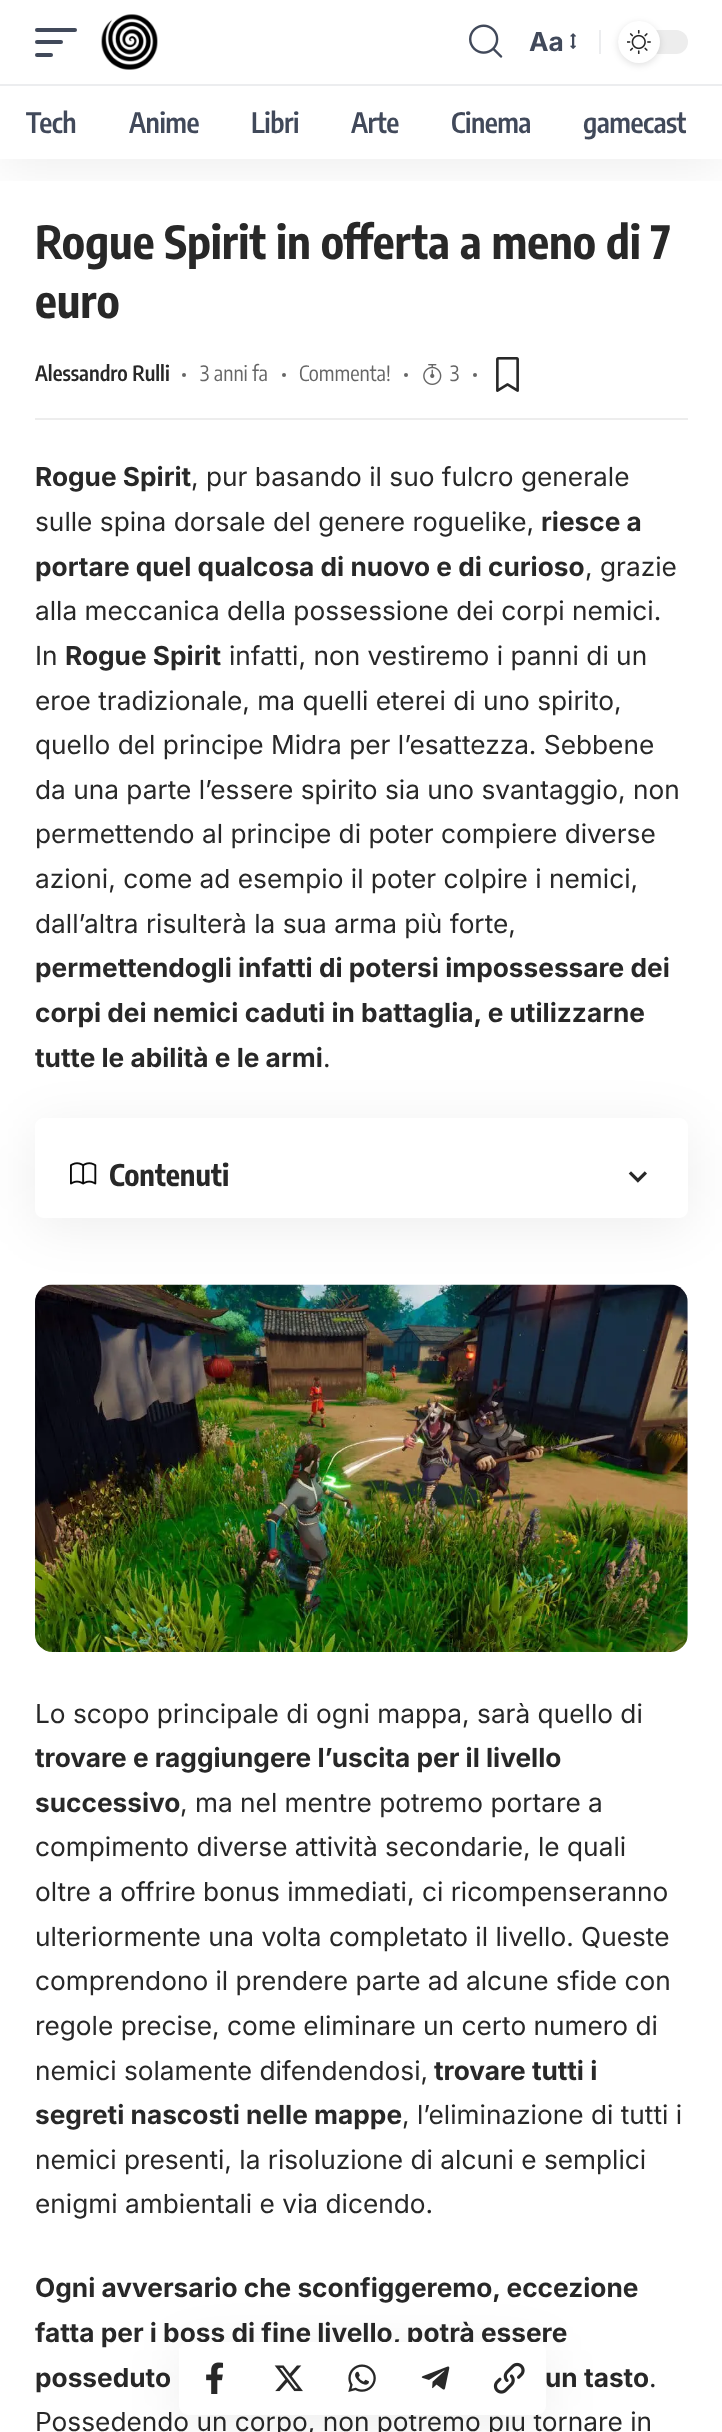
<!DOCTYPE html>
<meta charset="utf-8">
<style>body { margin: 0 } canvas { display: block }</style>
<canvas id="canvas" width="722" height="2432"></canvas>
<script type="module">
  const canvas = document.getElementById("canvas");
  const g = canvas.getContext("2d");
  g.miterLimit = 4;
  g.fontKerning = "normal";
  function drawText(s, x, y, [font, color]) {
    g.font = font;
    g.fillStyle = color;
    g.fillText(s, x, y);
  }
  function fillBox(x, y, w, h, color) {
    g.fillStyle = color;
    g.fillRect(x, y, w, h);
  }
  function fillRounded(x, y, w, h, r, color) {
    g.fillStyle = color;
    g.beginPath();
    g.roundRect(x, y, w, h, r);
    g.fill();
  }
  async function drawPicture(src, x, y, w, h) {
    const img = new Image();
    img.src = src;
    await img.decode();
    g.drawImage(img, x, y, w, h);
  }

  const s1 = ["bold 26.25px Inter", "#41495A"];
  const s2 = ["600 28px Encode Sans Condensed", "#41495A"];
  const s3 = ["bold 45.5px Encode Sans Condensed", "#282828"];
  const s4 = ["600 21px Encode Sans Condensed", "#282828"];
  const s5 = ["21px Encode Sans Condensed", "#666666"];
  const s6 = ["bold 26.25px Inter", "#282828"];
  const s7 = ["26.25px Inter", "#282828"];
  const s8 = ["bold 29.75px Encode Sans Condensed", "#282828"];

  fillBox(0, 0, 722, 2432, "#FFFFFF");
  g.save();
  g.beginPath();
  g.rect(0, 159, 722, 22);
  g.clip();
  g.fillStyle = "rgba(0, 0, 0, 0.07)";
  g.filter = "blur(26px)";
  g.beginPath();
  g.rect(0, 7, 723, 159);
  g.fill();
  g.filter = "none";
  g.restore();
  fillRounded(35, 28, 42, 4, 2, "#41495A");
  fillRounded(35, 40, 28, 4, 2, "#41495A");
  fillRounded(35, 53, 18, 4, 2, "#41495A");
  await drawPicture("pic1.png", 101, 14, 57, 56);
  await drawPicture("pic2.png", 469, 24, 34, 34);
  drawText("Aa", 529, 51, s1);
  await drawPicture("pic3.png", 570, 33, 6, 16);
  fillBox(599, 30, 2, 24, "#ECEDEF");
  fillRounded(618, 30, 70, 24, 12, "#EDEDED");
  g.fillStyle = "rgba(0, 0, 0, 0.12)";
  g.filter = "blur(3.5px)";
  g.beginPath();
  g.roundRect(618, 23, 42, 42, 21);
  g.fill();
  g.filter = "none";
  g.fillStyle = "#FFFFFF";
  g.beginPath();
  g.arc(639, 42, 21, 0, Math.PI * 2);
  g.fill();
  await drawPicture("pic4.png", 627, 30, 24, 24);
  fillBox(0, 84, 722, 2, "#ECEDEF");
  g.letterSpacing = "-0.5px";
  drawText("Tech", 26, 133, s2);
  drawText("Anime", 129, 133, s2);
  drawText("Libri", 251, 133, s2);
  drawText("Arte", 351, 133, s2);
  drawText("Cinema", 451, 133, s2);
  drawText("gamecast", 583, 133, s2);
  fillBox(35, 418, 653, 2, "#EDEDED");
  g.letterSpacing = "0px";
  drawText("Rogue Spirit in offerta a meno di 7", 35, 259, s3);
  drawText("euro", 35, 318, s3);
  drawText("Alessandro Rulli", 35, 381, s4);
  g.fillStyle = "#666666";
  g.beginPath();
  g.arc(184, 375, 2, 0, Math.PI * 2);
  g.fill();
  drawText("3 anni fa", 200, 381, s5);
  g.beginPath();
  g.arc(284, 375, 2, 0, Math.PI * 2);
  g.fill();
  drawText("Commenta!", 299, 381, s5);
  g.beginPath();
  g.arc(406, 375, 2, 0, Math.PI * 2);
  g.fill();
  await drawPicture("pic5.png", 423, 364, 19, 21);
  drawText("3", 450, 381, s5);
  g.beginPath();
  g.arc(475, 375, 2, 0, Math.PI * 2);
  g.fill();
  await drawPicture("pic6.png", 496, 357, 23, 35);
  drawText("Rogue Spirit", 35, 486, s6);
  drawText(", pur basando il suo fulcro generale", 191, 486, s7);
  drawText("sulle spina dorsale del genere roguelike,", 35, 531, s7);
  drawText("riesce a", 541, 531, s6);
  drawText("portare quel qualcosa di nuovo e di curioso", 35, 576, s6);
  drawText(", grazie", 585, 576, s7);
  drawText("alla meccanica della possessione dei corpi nemici.", 35, 620, s7);
  drawText("In", 35, 665, s7);
  drawText("Rogue Spirit", 65, 665, s6);
  drawText("infatti, non vestiremo i panni di un", 229, 665, s7);
  drawText("eroe tradizionale, ma quelli eterei di uno spirito,", 35, 710, s7);
  drawText("quello del principe Midra per l’esattezza. Sebbene", 35, 754, s7);
  drawText("da una parte l’essere spirito sia uno svantaggio, non", 35, 799, s7);
  drawText("permettendo al principe di poter compiere diverse", 35, 843, s7);
  drawText("azioni, come ad esempio il poter colpire i nemici,", 35, 888, s7);
  drawText("dall’altra risulterà la sua arma più forte,", 35, 933, s7);
  drawText("permettendogli infatti di potersi impossessare dei", 35, 977, s6);
  drawText("corpi dei nemici caduti in battaglia, e utilizzarne", 35, 1022, s6);
  drawText("tutte le abilità e le armi", 35, 1067, s6);
  drawText(".", 323, 1067, s7);
  g.save();
  g.beginPath();
  g.moveTo(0, 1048);
  g.lineTo(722, 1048);
  g.lineTo(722, 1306);
  g.lineTo(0, 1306);
  g.closePath();
  g.moveTo(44, 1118);
  g.lineTo(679, 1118);
  g.bezierCurveTo(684, 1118, 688, 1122, 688, 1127);
  g.lineTo(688, 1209);
  g.bezierCurveTo(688, 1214, 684, 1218, 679, 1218);
  g.lineTo(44, 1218);
  g.bezierCurveTo(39, 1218, 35, 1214, 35, 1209);
  g.lineTo(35, 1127);
  g.bezierCurveTo(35, 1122, 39, 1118, 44, 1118);
  g.closePath();
  g.clip("evenodd");
  g.fillStyle = "rgba(0, 0, 0, 0.07)";
  g.filter = "blur(26px)";
  g.beginPath();
  g.roundRect(35, 1127, 653, 100, 9);
  g.fill();
  g.filter = "none";
  g.restore();
  await drawPicture("pic7.png", 70, 1162, 27, 23);
  drawText("Contenuti", 109, 1186, s8);
  await drawPicture("pic8.png", 628, 1171, 19, 12);
  await drawPicture("pic9.png", 35, 1284, 653, 368);
  drawText("Lo scopo principale di ogni mappa, sarà quello di", 35, 1723, s7);
  drawText("trovare e raggiungere l’uscita per il livello", 35, 1767, s6);
  drawText("successivo", 35, 1812, s6);
  drawText(", ma nel mentre potremo portare a", 180, 1812, s7);
  drawText("compimento diverse attività secondarie, le quali", 35, 1856, s7);
  drawText("oltre a offrire bonus immediati, ci ricompenseranno", 35, 1901, s7);
  drawText("ulteriormente una volta completato il livello. Queste", 35, 1946, s7);
  drawText("comprendono il prendere parte ad alcune sfide con", 35, 1990, s7);
  drawText("regole precise, come eliminare un certo numero di", 35, 2035, s7);
  drawText("nemici solamente difendendosi,", 35, 2080, s7);
  drawText("trovare tutti i", 434, 2080, s6);
  drawText("segreti nascosti nelle mappe", 35, 2124, s6);
  drawText(", l’eliminazione di tutti i", 402, 2124, s7);
  drawText("nemici presenti, la risoluzione di alcuni e semplici", 35, 2169, s7);
  drawText("enigmi ambientali e via dicendo.", 35, 2213, s7);
  drawText("Ogni avversario che sconfiggeremo, eccezione", 35, 2297, s6);
  drawText("fatta per i boss di fine livello, potrà essere", 35, 2342, s6);
  drawText("posseduto", 35, 2387, s6);
  drawText("un tasto", 545, 2387, s6);
  drawText(".", 649, 2387, s7);
  drawText("Possedendo un corpo, non potremo più tornare in", 35, 2431, s7);
  g.fillStyle = "rgba(0, 0, 0, 0.07)";
  g.filter = "blur(26px)";
  g.beginPath();
  g.roundRect(179, 2350, 367, 74, 9);
  g.fill();
  g.filter = "none";
  fillRounded(179, 2342, 367, 73, 9, "#FFFFFF");
  await drawPicture("pic10.png", 206, 2362, 18, 32);
  await drawPicture("pic11.png", 274, 2365, 29, 27);
  await drawPicture("pic12.png", 348, 2364, 28, 28);
  await drawPicture("pic13.png", 421, 2366, 29, 24);
  await drawPicture("pic14.png", 493, 2362, 32, 32);
</script>
